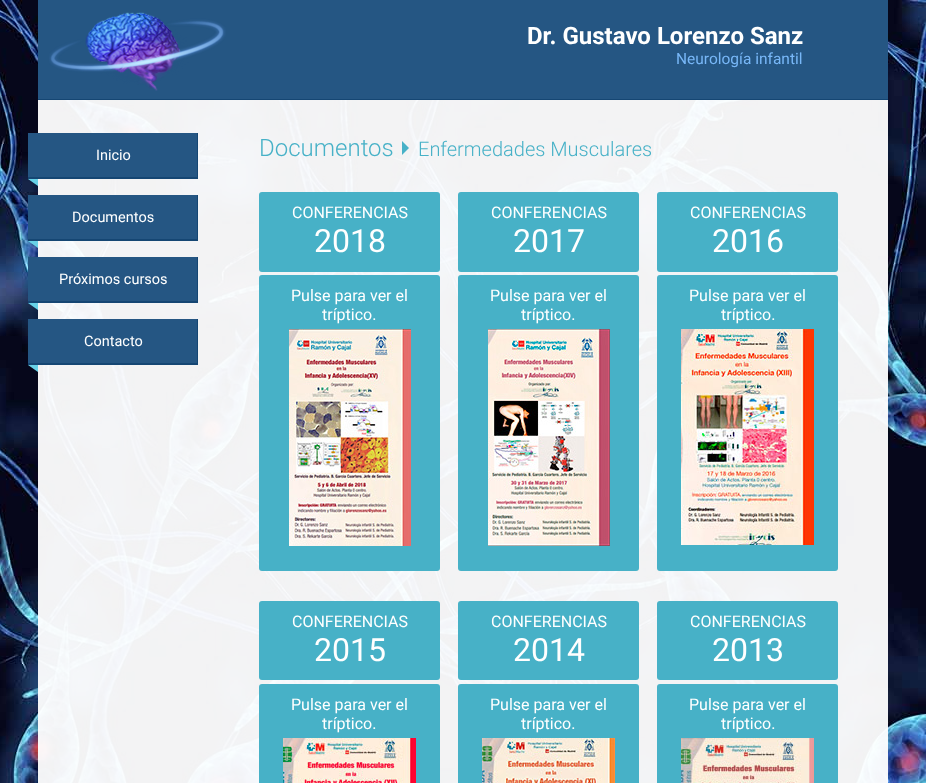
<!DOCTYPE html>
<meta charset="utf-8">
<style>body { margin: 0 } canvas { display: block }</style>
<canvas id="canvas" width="926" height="783"></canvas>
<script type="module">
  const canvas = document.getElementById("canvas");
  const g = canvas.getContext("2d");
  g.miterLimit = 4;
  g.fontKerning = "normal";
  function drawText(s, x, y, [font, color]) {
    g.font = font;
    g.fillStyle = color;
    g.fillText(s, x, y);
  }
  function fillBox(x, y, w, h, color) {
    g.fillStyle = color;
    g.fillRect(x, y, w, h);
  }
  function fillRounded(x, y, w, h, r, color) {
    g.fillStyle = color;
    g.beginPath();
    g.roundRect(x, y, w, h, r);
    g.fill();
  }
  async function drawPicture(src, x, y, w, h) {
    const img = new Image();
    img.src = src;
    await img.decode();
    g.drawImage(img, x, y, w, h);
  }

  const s1 = ["bold 24px Roboto", "#FFFFFF"];
  const s2 = ["15.5px Roboto", "#78B7F7"];
  const s3 = ["14.5px Roboto", "#FFFFFF"];
  const s4 = ["300 24px Roboto", "#47B1C7"];
  const s5 = ["300 20px Roboto", "#47B1C7"];
  const s6 = ["16px Roboto", "#FFFFFF"];
  const s7 = ["32px Roboto", "#FFFFFF"];

  fillBox(0, 0, 926, 783, "#FFFFFF");
  await drawPicture("pic1.png", 0, 0, 926, 783);
  fillBox(38, 0, 850, 99, "#255683");
  await drawPicture("pic2.png", 49, 12, 177, 79);
  fillBox(38, 99, 850, 1, "#154673");
  drawText("Dr. Gustavo Lorenzo Sanz", 527, 44, s1);
  drawText("Neurología infantil", 676, 64, s2);
  fillBox(28, 133, 169, 44, "#255683");
  g.save();
  g.beginPath();
  g.rect(28, 133, 170, 46);
  g.clip();
  g.fillStyle = "#154673";
  g.beginPath();
  g.moveTo(-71, 34);
  g.lineTo(297, 34);
  g.lineTo(297, 278);
  g.lineTo(-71, 278);
  g.closePath();
  g.moveTo(27, 131);
  g.lineTo(197, 131);
  g.lineTo(197, 177);
  g.lineTo(27, 177);
  g.closePath();
  g.fill("evenodd");
  g.restore();
  drawText("Inicio", 96, 160, s3);
  g.fillStyle = "#67D1E7";
  g.beginPath();
  g.moveTo(38, 179);
  g.lineTo(38, 186);
  g.lineTo(28, 179);
  g.closePath();
  g.fill();
  fillBox(28, 195, 169, 44, "#255683");
  g.save();
  g.beginPath();
  g.rect(28, 195, 170, 46);
  g.clip();
  g.fillStyle = "#154673";
  g.beginPath();
  g.moveTo(-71, 96);
  g.lineTo(297, 96);
  g.lineTo(297, 340);
  g.lineTo(-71, 340);
  g.closePath();
  g.moveTo(27, 193);
  g.lineTo(197, 193);
  g.lineTo(197, 239);
  g.lineTo(27, 239);
  g.closePath();
  g.fill("evenodd");
  g.restore();
  drawText("Documentos", 72, 222, s3);
  g.fillStyle = "#67D1E7";
  g.beginPath();
  g.moveTo(38, 241);
  g.lineTo(38, 248);
  g.lineTo(28, 241);
  g.closePath();
  g.fill();
  fillBox(28, 257, 169, 44, "#255683");
  g.save();
  g.beginPath();
  g.rect(28, 257, 170, 46);
  g.clip();
  g.fillStyle = "#154673";
  g.beginPath();
  g.moveTo(-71, 158);
  g.lineTo(297, 158);
  g.lineTo(297, 402);
  g.lineTo(-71, 402);
  g.closePath();
  g.moveTo(27, 255);
  g.lineTo(197, 255);
  g.lineTo(197, 301);
  g.lineTo(27, 301);
  g.closePath();
  g.fill("evenodd");
  g.restore();
  drawText("Próximos cursos", 59, 284, s3);
  g.fillStyle = "#67D1E7";
  g.beginPath();
  g.moveTo(38, 303);
  g.lineTo(38, 310);
  g.lineTo(28, 303);
  g.closePath();
  g.fill();
  fillBox(28, 319, 169, 44, "#255683");
  g.save();
  g.beginPath();
  g.rect(28, 319, 170, 46);
  g.clip();
  g.fillStyle = "#154673";
  g.beginPath();
  g.moveTo(-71, 220);
  g.lineTo(297, 220);
  g.lineTo(297, 464);
  g.lineTo(-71, 464);
  g.closePath();
  g.moveTo(27, 317);
  g.lineTo(197, 317);
  g.lineTo(197, 363);
  g.lineTo(27, 363);
  g.closePath();
  g.fill("evenodd");
  g.restore();
  drawText("Contacto", 84, 346, s3);
  g.fillStyle = "#67D1E7";
  g.beginPath();
  g.moveTo(38, 365);
  g.lineTo(38, 372);
  g.lineTo(28, 365);
  g.closePath();
  g.fill();
  drawText("Documentos", 259, 156, s4);
  g.beginPath();
  g.moveTo(402, 155);
  g.lineTo(402, 141);
  g.lineTo(409, 148);
  g.closePath();
  g.fill();
  drawText("Enfermedades Musculares", 418, 156, s5);
  fillRounded(259, 192, 181, 80, 3, "#47B1C7");
  drawText("CONFERENCIAS", 292, 218, s6);
  drawText("2018", 314, 252, s7);
  fillRounded(259, 275, 181, 296, 3, "#47B1C7");
  drawText("Pulse para ver el", 291, 301, s6);
  drawText("tríptico.", 322, 320, s6);
  await drawPicture("pic3.png", 289, 329, 122, 217);
  fillRounded(458, 192, 181, 80, 3, "#47B1C7");
  drawText("CONFERENCIAS", 491, 218, s6);
  drawText("2017", 513, 252, s7);
  fillRounded(458, 275, 181, 296, 3, "#47B1C7");
  drawText("Pulse para ver el", 490, 301, s6);
  drawText("tríptico.", 521, 320, s6);
  await drawPicture("pic4.png", 488, 329, 122, 217);
  fillRounded(657, 192, 181, 80, 3, "#47B1C7");
  drawText("CONFERENCIAS", 690, 218, s6);
  drawText("2016", 712, 252, s7);
  fillRounded(657, 275, 181, 296, 3, "#47B1C7");
  drawText("Pulse para ver el", 689, 301, s6);
  drawText("tríptico.", 721, 320, s6);
  await drawPicture("pic5.png", 681, 329, 133, 216);
  fillRounded(259, 601, 181, 79, 3, "#47B1C7");
  drawText("CONFERENCIAS", 292, 627, s6);
  drawText("2015", 314, 661, s7);
  fillRounded(259, 684, 181, 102, 3, "#47B1C7");
  drawText("Pulse para ver el", 291, 710, s6);
  drawText("tríptico.", 322, 729, s6);
  await drawPicture("pic6.png", 283, 738, 133, 45);
  fillRounded(458, 601, 181, 79, 3, "#47B1C7");
  drawText("CONFERENCIAS", 491, 627, s6);
  drawText("2014", 513, 661, s7);
  fillRounded(458, 684, 181, 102, 3, "#47B1C7");
  drawText("Pulse para ver el", 490, 710, s6);
  drawText("tríptico.", 521, 729, s6);
  await drawPicture("pic7.png", 482, 738, 133, 45);
  fillRounded(657, 601, 181, 79, 3, "#47B1C7");
  drawText("CONFERENCIAS", 690, 627, s6);
  drawText("2013", 712, 661, s7);
  fillRounded(657, 684, 181, 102, 3, "#47B1C7");
  drawText("Pulse para ver el", 689, 710, s6);
  drawText("tríptico.", 721, 729, s6);
  await drawPicture("pic8.png", 681, 738, 133, 45);
</script>
